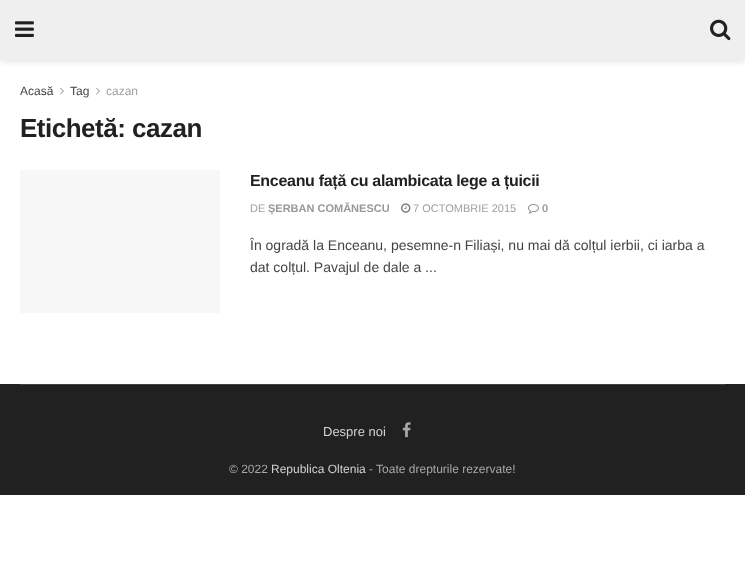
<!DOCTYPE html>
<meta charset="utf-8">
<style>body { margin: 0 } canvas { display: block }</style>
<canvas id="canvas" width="745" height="583"></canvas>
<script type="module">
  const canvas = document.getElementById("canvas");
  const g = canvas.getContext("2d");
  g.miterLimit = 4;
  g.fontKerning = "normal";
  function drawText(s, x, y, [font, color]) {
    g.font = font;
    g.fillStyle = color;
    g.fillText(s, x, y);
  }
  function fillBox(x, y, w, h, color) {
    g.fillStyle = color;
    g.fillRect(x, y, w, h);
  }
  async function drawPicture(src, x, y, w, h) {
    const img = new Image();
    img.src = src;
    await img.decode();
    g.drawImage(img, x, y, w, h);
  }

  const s1 = ["12px Liberation Sans", "#444444"];
  const s2 = ["12px Liberation Sans", "#A0A0A0"];
  const s3 = ["bold 26px Liberation Sans", "#212121"];
  const s4 = ["bold 16px Liberation Sans", "#212121"];
  const s5 = ["11px Liberation Sans", "#A0A0A0"];
  const s6 = ["bold 11px Liberation Sans", "#989898"];
  const s7 = ["bold 11px Liberation Sans", "#A0A0A0"];
  const s8 = ["14px Liberation Sans", "#444444"];
  const s9 = ["13px Liberation Sans", "#D3D3D3"];
  const s10 = ["12px Liberation Sans", "#A8A8AA"];
  const s11 = ["12px Liberation Sans", "#D3D3D3"];

  fillBox(0, 0, 745, 583, "#FFFFFF");
  g.fillStyle = "rgba(0, 0, 0, 0.1)";
  g.filter = "blur(3px)";
  g.beginPath();
  g.rect(0, 2, 745, 60);
  g.fill();
  g.filter = "none";
  fillBox(0, 0, 745, 60, "#EFEFEF");
  await drawPicture("pic1.png", 15, 21, 19, 16);
  await drawPicture("pic2.png", 710, 19, 21, 22);
  drawText("Acasă", 20, 95, s1);
  await drawPicture("pic3.png", 60, 87, 4, 8);
  drawText("Tag", 70, 95, s1);
  await drawPicture("pic3.png", 96, 87, 4, 8);
  drawText("cazan", 106, 95, s2);
  g.letterSpacing = "-0.5px";
  drawText("Etichetă: cazan", 20, 137, s3);
  fillBox(20, 170, 200, 143, "#F7F7F7");
  g.letterSpacing = "-0.3px";
  drawText("Enceanu față cu alambicata lege a țuicii", 250, 186, s4);
  g.letterSpacing = "0px";
  drawText("DE", 250, 212, s5);
  drawText("ŞERBAN COMĂNESCU", 268, 212, s6);
  await drawPicture("pic4.png", 401, 203, 10, 10);
  drawText("7 OCTOMBRIE 2015", 413, 212, s5);
  await drawPicture("pic5.png", 528, 204, 11, 10);
  drawText("0", 542, 212, s7);
  drawText("În ogradă la Enceanu, pesemne-n Filiași, nu mai dă colțul ierbii, ci iarba a", 250, 250, s8);
  drawText("dat colțul. Pavajul de dale a ...", 250, 272, s8);
  fillBox(0, 384, 745, 111, "#212121");
  fillBox(20, 384, 705, 1, "#424242");
  drawText("Despre noi", 323, 436, s9);
  await drawPicture("pic6.png", 402, 422, 9, 16);
  drawText("© 2022", 229, 473, s10);
  drawText("Republica Oltenia", 271, 473, s11);
  drawText("- Toate drepturile rezervate!", 369, 473, s10);
</script>
